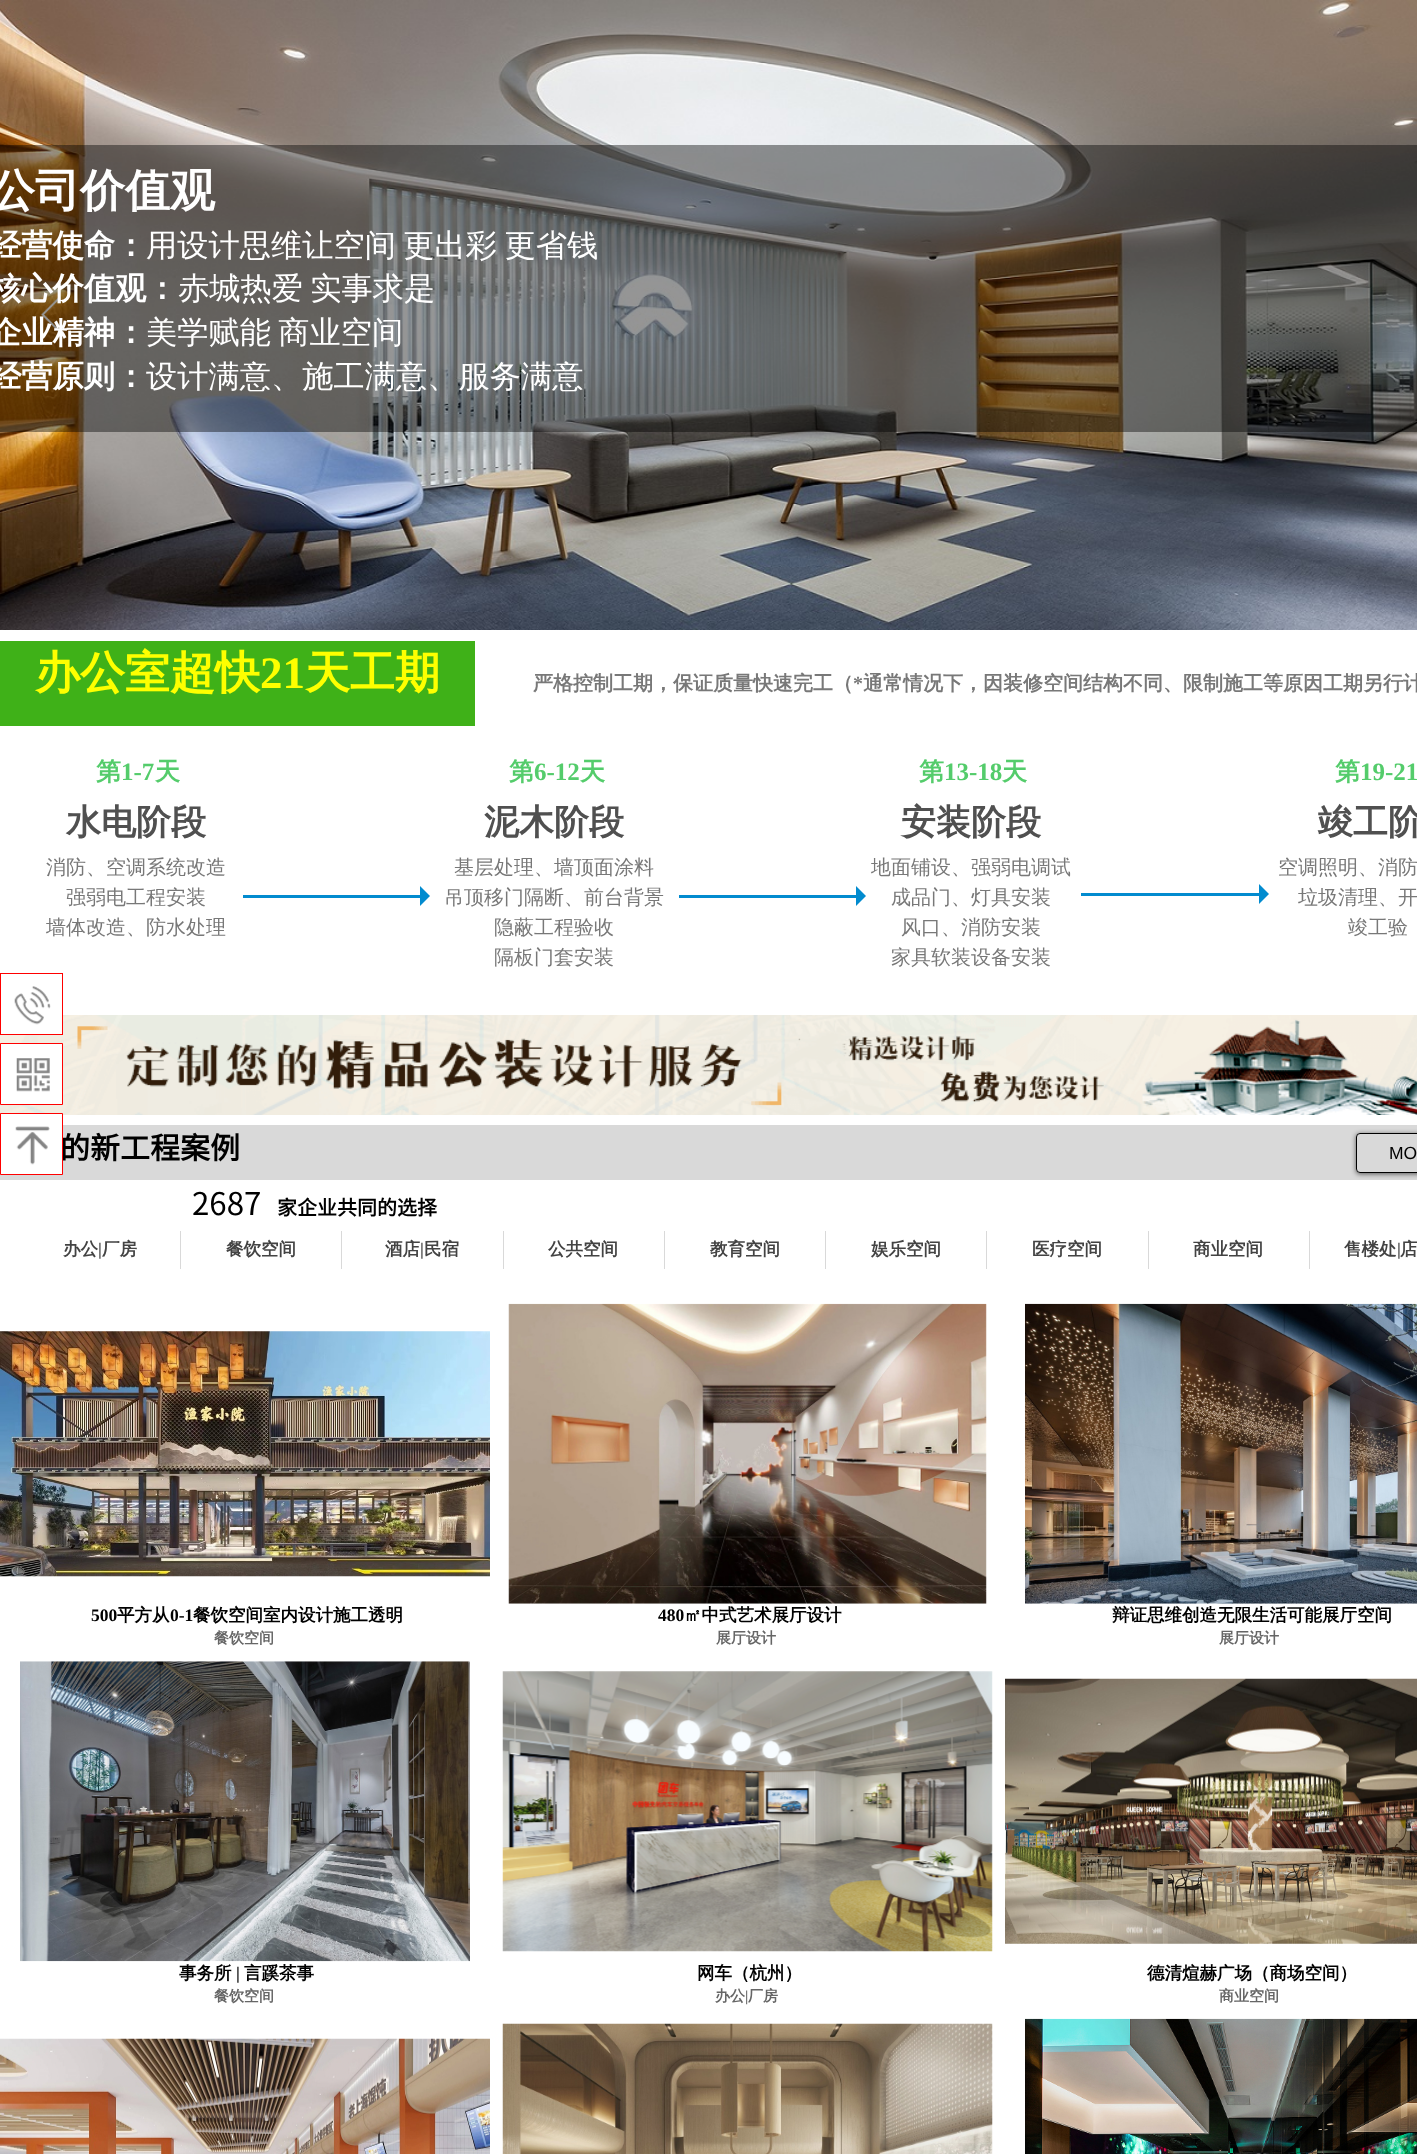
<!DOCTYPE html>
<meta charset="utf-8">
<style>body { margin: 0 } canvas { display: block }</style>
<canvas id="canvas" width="1417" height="2154"></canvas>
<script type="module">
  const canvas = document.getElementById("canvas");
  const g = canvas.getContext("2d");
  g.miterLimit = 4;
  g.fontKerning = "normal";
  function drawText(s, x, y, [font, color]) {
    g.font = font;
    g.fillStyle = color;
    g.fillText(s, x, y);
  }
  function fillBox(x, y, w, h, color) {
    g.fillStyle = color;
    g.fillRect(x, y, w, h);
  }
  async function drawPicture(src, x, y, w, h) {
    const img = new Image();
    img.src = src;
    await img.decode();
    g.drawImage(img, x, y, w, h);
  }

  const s1 = ["bold 45px WenQuanYi Zen Hei", "#FFFFFF"];
  const s2 = ["bold 31.25px WenQuanYi Zen Hei", "#FFFFFF"];
  const s3 = ["500 31.25px WenQuanYi Zen Hei", "#FFFFFF"];
  const s4 = ["bold 45px WenQuanYi Zen Hei", "#FEFF00"];
  const s5 = ["bold 45px Liberation Serif", "#FEFF00"];
  const s6 = ["bold 20px WenQuanYi Zen Hei", "#787878"];
  const s7 = ["bold 20px Liberation Serif", "#787878"];
  const s8 = ["bold 25px WenQuanYi Zen Hei", "#54CC6B"];
  const s9 = ["bold 25px Liberation Serif", "#54CC6B"];
  const s10 = ["bold 35px WenQuanYi Zen Hei", "#505050"];
  const s11 = ["500 20px WenQuanYi Zen Hei", "#787878"];
  const s12 = ["bold 30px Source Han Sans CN", "#000000"];
  const s13 = ["17.5px Liberation Sans", "#000000"];
  const s14 = ["31.25px Source Han Sans CN", "#000000"];
  const s15 = ["bold 20px Source Han Sans CN", "#000000"];
  const s16 = ["bold 17.5px WenQuanYi Zen Hei", "#434343"];
  const s17 = ["bold 17.5px Liberation Serif", "#434343"];
  const s18 = ["bold 17.5px Liberation Serif", "#000000"];
  const s19 = ["bold 17.5px WenQuanYi Zen Hei", "#000000"];
  const s20 = ["bold 15px WenQuanYi Zen Hei", "#666666"];
  const s21 = ["bold 15px Liberation Serif", "#666666"];

  fillBox(0, 0, 1417, 2154, "#FFFFFF");
  await drawPicture("pic1.png", 0, 0, 1417, 630);
  await drawPicture("pic2.png", 41, 296, 20, 37);
  fillBox(0, 145, 1417, 287, "rgba(0, 0, 0, 0.41)");
  drawText("公司价值观", -10, 206, s1);
  drawText("经营使命：", -10, 256, s2);
  g.wordSpacing = "-2px";
  drawText("用设计思维让空间 更出彩 更省钱", 146, 256, s3);
  g.wordSpacing = "0px";
  drawText("核心价值观：", -10, 299, s2);
  g.wordSpacing = "-2px";
  drawText("赤城热爱 实事求是", 178, 299, s3);
  g.wordSpacing = "0px";
  drawText("企业精神：", -10, 343, s2);
  g.wordSpacing = "-2px";
  drawText("美学赋能 商业空间", 146, 343, s3);
  g.wordSpacing = "0px";
  drawText("经营原则：", -10, 387, s2);
  drawText("设计满意、施工满意、服务满意", 146, 387, s3);
  fillBox(0, 641, 475, 85, "#3FB118");
  drawText("办公室超快", 35, 688, s4);
  drawText("21", 260, 688, s5);
  drawText("天工期", 305, 688, s4);
  drawText("严格控制工期，保证质量快速完工（", 533, 690, s6);
  drawText("*", 853, 690, s7);
  drawText("通常情况下，因装修空间结构不同、限制施工等原因工期另行计", 863, 690, s6);
  drawText("第", 96, 780, s8);
  drawText("1-7", 121, 780, s9);
  drawText("天", 155, 780, s8);
  drawText("第", 509, 780, s8);
  drawText("6-12", 534, 780, s9);
  drawText("天", 580, 780, s8);
  drawText("第", 919, 780, s8);
  drawText("13-18", 944, 780, s9);
  drawText("天", 1002, 780, s8);
  drawText("第", 1335, 780, s8);
  drawText("19-21", 1360, 780, s9);
  drawText("水电阶段", 66, 834, s10);
  drawText("消防、空调系统改造", 46, 874, s11);
  drawText("强弱电工程安装", 66, 904, s11);
  drawText("墙体改造、防水处理", 46, 934, s11);
  drawText("泥木阶段", 484, 834, s10);
  drawText("基层处理、墙顶面涂料", 454, 874, s11);
  drawText("吊顶移门隔断、前台背景", 444, 904, s11);
  drawText("隐蔽工程验收", 494, 934, s11);
  drawText("隔板门套安装", 494, 964, s11);
  drawText("安装阶段", 901, 834, s10);
  drawText("地面铺设、强弱电调试", 871, 874, s11);
  drawText("成品门、灯具安装", 891, 904, s11);
  drawText("风口、消防安装", 901, 934, s11);
  drawText("家具软装设备安装", 891, 964, s11);
  drawText("竣工阶", 1318, 834, s10);
  drawText("空调照明、消防", 1278, 874, s11);
  drawText("垃圾清理、开", 1298, 904, s11);
  drawText("竣工验", 1348, 934, s11);
  g.fillStyle = "#028BCF";
  g.beginPath();
  g.moveTo(420, 906);
  g.lineTo(420, 886);
  g.lineTo(430, 896);
  g.closePath();
  g.fill();
  fillBox(243, 895, 180, 3, "#028BCF");
  g.beginPath();
  g.moveTo(856, 906);
  g.lineTo(856, 886);
  g.lineTo(866, 896);
  g.closePath();
  g.fill();
  fillBox(679, 895, 180, 3, "#028BCF");
  g.beginPath();
  g.moveTo(1259, 904);
  g.lineTo(1259, 884);
  g.lineTo(1269, 894);
  g.closePath();
  g.fill();
  fillBox(1081, 893, 180, 3, "#028BCF");
  await drawPicture("pic3.png", 0, 1015, 1417, 100);
  fillBox(0, 1125, 1417, 55, "#D9D9D9");
  drawText("的新工程案例", 60, 1159, s12);
  g.save();
  g.beginPath();
  g.moveTo(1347, 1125);
  g.lineTo(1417, 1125);
  g.lineTo(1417, 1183);
  g.lineTo(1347, 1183);
  g.closePath();
  g.moveTo(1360, 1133);
  g.lineTo(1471, 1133);
  g.bezierCurveTo(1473, 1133, 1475, 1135, 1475, 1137);
  g.lineTo(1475, 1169);
  g.bezierCurveTo(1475, 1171, 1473, 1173, 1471, 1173);
  g.lineTo(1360, 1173);
  g.bezierCurveTo(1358, 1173, 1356, 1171, 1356, 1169);
  g.lineTo(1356, 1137);
  g.bezierCurveTo(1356, 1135, 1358, 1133, 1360, 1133);
  g.closePath();
  g.clip("evenodd");
  g.fillStyle = "rgba(0, 0, 0, 0.6)";
  g.filter = "blur(2.5px)";
  g.beginPath();
  g.roundRect(1356, 1134, 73, 40, 4);
  g.fill();
  g.filter = "none";
  g.restore();
  g.beginPath();
  g.roundRect(1356.5, 1133.5, 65, 39, 3.5);
  g.strokeStyle = "#000000";
  g.stroke();
  drawText("MO", 1389, 1159, s13);
  drawText("2687", 192, 1215, s14);
  drawText("家企业共同的选择", 277, 1215, s15);
  fillBox(180, 1231, 1, 38, "#D9D9D9");
  drawText("办公", 63, 1255, s16);
  drawText("|", 98, 1255, s17);
  drawText("厂房", 102, 1255, s16);
  fillBox(341, 1231, 1, 38, "#D9D9D9");
  drawText("餐饮空间", 226, 1255, s16);
  fillBox(503, 1231, 1, 38, "#D9D9D9");
  drawText("酒店", 385, 1255, s16);
  drawText("|", 420, 1255, s17);
  drawText("民宿", 424, 1255, s16);
  fillBox(664, 1231, 1, 38, "#D9D9D9");
  drawText("公共空间", 548, 1255, s16);
  fillBox(825, 1231, 1, 38, "#D9D9D9");
  drawText("教育空间", 710, 1255, s16);
  fillBox(986, 1231, 1, 38, "#D9D9D9");
  drawText("娱乐空间", 871, 1255, s16);
  fillBox(1148, 1231, 1, 38, "#D9D9D9");
  drawText("医疗空间", 1032, 1255, s16);
  fillBox(1309, 1231, 1, 38, "#D9D9D9");
  drawText("商业空间", 1193, 1255, s16);
  drawText("售楼处", 1344, 1255, s16);
  drawText("|", 1397, 1255, s17);
  drawText("店", 1400, 1255, s16);
  await drawPicture("pic4.png", 0, 1331, 490, 246);
  drawText("500", 91, 1621, s18);
  drawText("平方从", 117, 1621, s19);
  drawText("0-1", 170, 1621, s18);
  drawText("餐饮空间室内设计施工透明", 193, 1621, s19);
  drawText("餐饮空间", 214, 1643, s20);
  await drawPicture("pic5.png", 508, 1303, 479, 301);
  drawText("480", 658, 1621, s18);
  drawText("㎡中式艺术展厅设计", 684, 1621, s19);
  drawText("展厅设计", 716, 1643, s20);
  await drawPicture("pic6.png", 1025, 1303, 392, 301);
  drawText("辩证思维创造无限生活可能展厅空间", 1112, 1621, s19);
  drawText("展厅设计", 1219, 1643, s20);
  await drawPicture("pic7.png", 20, 1661, 450, 301);
  drawText("事务所", 179, 1979, s19);
  drawText("|", 236, 1979, s18);
  drawText("言蹊茶事", 244, 1979, s19);
  drawText("餐饮空间", 214, 2001, s20);
  await drawPicture("pic8.png", 502, 1671, 491, 281);
  drawText("网车（杭州）", 697, 1979, s19);
  drawText("办公", 715, 2001, s20);
  drawText("|", 745, 2001, s21);
  drawText("厂房", 748, 2001, s20);
  await drawPicture("pic9.png", 1005, 1678, 412, 266);
  drawText("德清煊赫广场（商场空间）", 1147, 1979, s19);
  drawText("商业空间", 1219, 2001, s20);
  await drawPicture("pic10.png", 0, 2038, 490, 116);
  await drawPicture("pic11.png", 502, 2023, 491, 131);
  await drawPicture("pic12.png", 1025, 2018, 392, 136);
  fillBox(1, 1015, 61, 19, "#FFFFFF");
  g.strokeStyle = "#FF0000";
  g.strokeRect(0.5, 973.5, 62, 61);
  await drawPicture("pic13.png", 14, 986, 37, 39);
  g.beginPath();
  g.rect(0.5, 1043.5, 62, 61);
  g.fill();
  g.stroke();
  await drawPicture("pic14.png", 16, 1058, 34, 34);
  g.beginPath();
  g.rect(0.5, 1113.5, 62, 61);
  g.fill();
  g.stroke();
  await drawPicture("pic15.png", 15, 1126, 35, 39);
</script>
